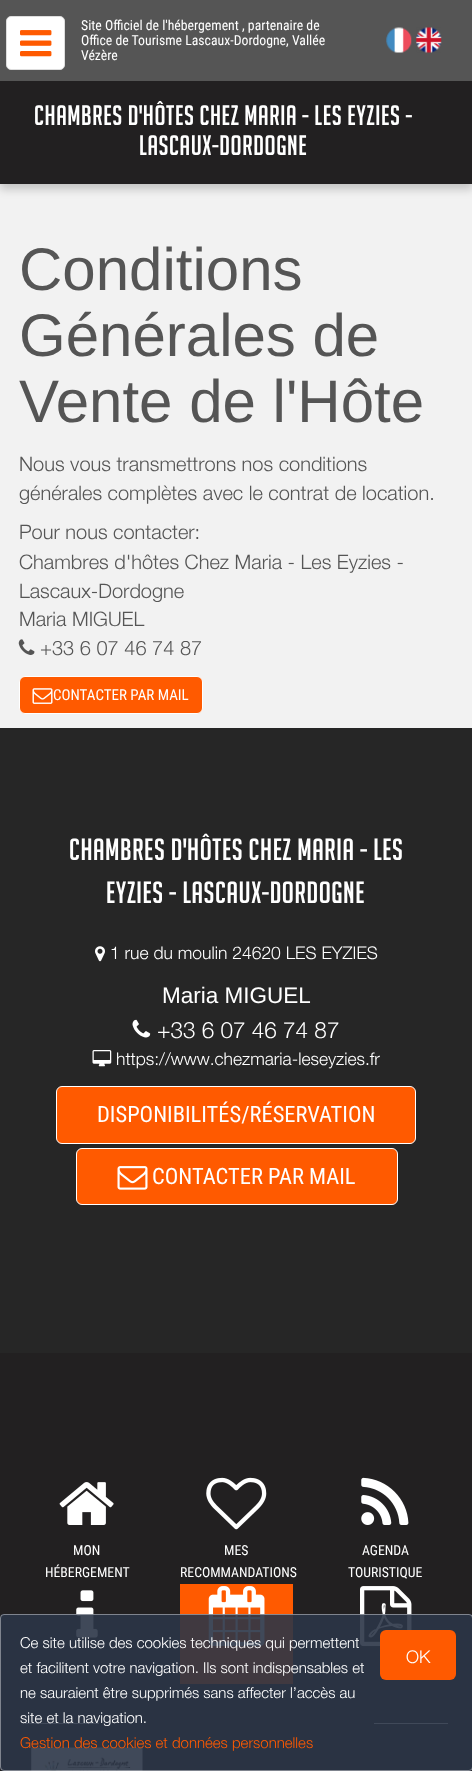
<!DOCTYPE html>
<meta charset="utf-8">
<style>body { margin: 0 } canvas { display: block }</style>
<canvas id="canvas" width="472" height="1771"></canvas>
<script type="module">
  const canvas = document.getElementById("canvas");
  const g = canvas.getContext("2d");
  g.miterLimit = 4;
  g.fontKerning = "normal";
  function drawText(s, x, y, [font, color]) {
    g.font = font;
    g.fillStyle = color;
    g.fillText(s, x, y);
  }
  function fillBox(x, y, w, h, color) {
    g.fillStyle = color;
    g.fillRect(x, y, w, h);
  }
  function fillRounded(x, y, w, h, r, color) {
    g.fillStyle = color;
    g.beginPath();
    g.roundRect(x, y, w, h, r);
    g.fill();
  }
  async function drawPicture(src, x, y, w, h) {
    const img = new Image();
    img.src = src;
    await img.decode();
    g.drawImage(img, x, y, w, h);
  }

  const s1 = ["13.75px Roboto Condensed", "#FFFFFF"];
  const s2 = ["27.5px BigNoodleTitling", "#FFFFFF"];
  const s3 = ["60px Liberation Sans", "#555555"];
  const s4 = ["300 20px Helvetica Neue", "#555555"];
  const s5 = ["15px Roboto Condensed", "#FFFFFF"];
  const s6 = ["30px BigNoodleTitling", "#FFFFFF"];
  const s7 = ["300 17.5px Helvetica Neue", "#FFFFFF"];
  const s8 = ["22.5px Liberation Sans", "#FFFFFF"];
  const s9 = ["300 22.5px Helvetica Neue", "#FFFFFF"];
  const s10 = ["22.5px Roboto Condensed", "#FFFFFF"];
  const s11 = ["300 15px Helvetica Neue", "#FFFFFF"];
  const s12 = ["300 15px Helvetica Neue", "#FF5A00"];

  fillBox(0, 0, 472, 1771, "#F2F2F2");
  g.fillStyle = "rgba(0, 0, 0, 0.2)";
  g.filter = "blur(5px)";
  g.beginPath();
  g.rect(0, 5, 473, 184);
  g.fill();
  g.filter = "none";
  fillBox(0, 0, 472, 81, "#555555");
  g.fillStyle = "#FFFFFF";
  g.beginPath();
  g.roundRect(6.5, 16.5, 58, 53, 4.5);
  g.fill();
  g.strokeStyle = "#DDDDDD";
  g.stroke();
  await drawPicture("pic1.png", 20, 30, 32, 27);
  fillBox(0, 81, 472, 103, "#222021");
  drawText("Site Officiel de l'hébergement , partenaire de", 81, 30, s1);
  drawText("Office de Tourisme Lascaux-Dordogne, Vallée", 81, 45, s1);
  drawText("Vézère", 81, 60, s1);
  await drawPicture("pic2.png", 386, 27, 26, 26);
  await drawPicture("pic3.png", 416, 27, 26, 26);
  g.letterSpacing = "0.6px";
  drawText("CHAMBRES D'HÔTES CHEZ MARIA - LES EYZIES -", 34, 125, s2);
  drawText("LASCAUX-DORDOGNE", 139, 155, s2);
  g.letterSpacing = "0px";
  drawText("Conditions", 19, 290, s3);
  drawText("Générales de", 19, 356, s3);
  drawText("Vente de l'Hôte", 19, 422, s3);
  drawText("Nous vous transmettrons nos conditions", 19, 471, s4);
  drawText("générales complètes avec le contrat de location.", 19, 500, s4);
  drawText("Pour nous contacter:", 19, 539, s4);
  drawText("Chambres d'hôtes Chez Maria - Les Eyzies -", 19, 569, s4);
  drawText("Lascaux-Dordogne", 19, 598, s4);
  drawText("Maria MIGUEL", 19, 626, s4);
  await drawPicture("pic4.png", 18, 639, 17, 16);
  drawText("+33 6 07 46 74 87", 40, 655, s4);
  g.fillStyle = "#FF5A00";
  g.beginPath();
  g.roundRect(19.5, 676.5, 183, 37, 5.5);
  g.fill();
  g.strokeStyle = "#FFFFFF";
  g.stroke();
  await drawPicture("pic5.png", 32, 688, 21, 16);
  drawText("CONTACTER PAR MAIL", 53, 700, s5);
  fillBox(0, 1353, 472, 418, "#222021");
  fillBox(0, 728, 472, 625, "#262626");
  g.letterSpacing = "0.6px";
  drawText("CHAMBRES D'HÔTES CHEZ MARIA - LES", 69, 860, s6);
  drawText("EYZIES - LASCAUX-DORDOGNE", 106, 903, s6);
  await drawPicture("pic6.png", 95, 946, 10, 16);
  g.letterSpacing = "0px";
  drawText("1 rue du moulin 24620 LES EYZIES", 110, 959, s7);
  drawText("Maria MIGUEL", 162, 1003, s8);
  await drawPicture("pic7.png", 132, 1019, 19, 19);
  drawText("+33 6 07 46 74 87", 157, 1038, s9);
  await drawPicture("pic8.png", 92, 1050, 20, 17);
  drawText("https://www.chezmaria-leseyzies.fr", 116, 1065, s7);
  g.fillStyle = "#FF5A00";
  g.beginPath();
  g.roundRect(56.5, 1086.5, 359, 57, 5.5);
  g.fill();
  g.stroke();
  drawText("DISPONIBILITÉS/RÉSERVATION", 97, 1122, s10);
  g.fillStyle = "#FF5A00";
  g.beginPath();
  g.roundRect(76.5, 1148.5, 321, 56, 5.5);
  g.fill();
  g.stroke();
  await drawPicture("pic9.png", 117, 1166, 31, 24);
  drawText("CONTACTER PAR MAIL", 152, 1184, s10);
  await drawPicture("pic10.png", 59, 1482, 55, 43);
  drawText("MON", 73, 1555, s1);
  drawText("HÉBERGEMENT", 45, 1577, s1);
  await drawPicture("pic11.png", 206, 1477, 61, 53);
  drawText("MES", 224, 1555, s1);
  drawText("RECOMMANDATIONS", 180, 1577, s1);
  await drawPicture("pic12.png", 361, 1477, 48, 48);
  drawText("AGENDA", 362, 1555, s1);
  drawText("TOURISTIQUE", 348, 1577, s1);
  await drawPicture("pic13.png", 76, 1590, 22, 48);
  fillBox(180, 1584, 113, 100, "#FF5A00");
  await drawPicture("pic14.png", 208, 1586, 57, 61);
  await drawPicture("pic15.png", 360, 1586, 52, 61);
  fillBox(25, 1723, 74, 1, "#FFFFFF");
  fillBox(374, 1723, 74, 1, "#FFFFFF");
  await drawPicture("pic16.png", 31, 1747, 112, 24);
  fillRounded(0, 1614, 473, 157, 4, "rgba(43, 53, 71, 0.9)");
  g.beginPath();
  g.roundRect(0.5, 1614.5, 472, 156, 3.5);
  g.strokeStyle = "rgba(255, 255, 255, 0.4)";
  g.stroke();
  drawText("Ce site utilise des cookies techniques qui permettent", 20, 1648, s11);
  fillRounded(380, 1630, 76, 50, 6, "#FF5A00");
  drawText("OK", 406, 1663, s7);
  drawText("et facilitent votre navigation. Ils sont indispensables et", 20, 1673, s11);
  drawText("ne sauraient être supprimés sans affecter l’accès au", 20, 1698, s11);
  drawText("site et la navigation.", 20, 1723, s11);
  drawText("Gestion des cookies et données personnelles", 20, 1748, s12);
</script>
